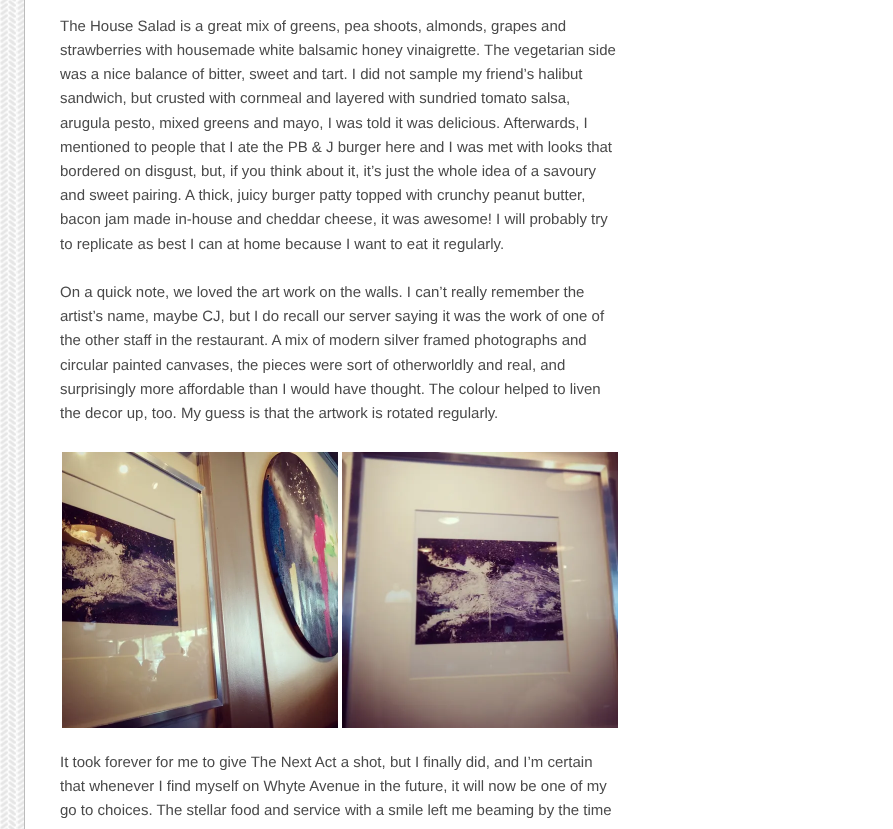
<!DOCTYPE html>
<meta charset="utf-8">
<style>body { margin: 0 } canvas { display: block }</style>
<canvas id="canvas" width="893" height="829"></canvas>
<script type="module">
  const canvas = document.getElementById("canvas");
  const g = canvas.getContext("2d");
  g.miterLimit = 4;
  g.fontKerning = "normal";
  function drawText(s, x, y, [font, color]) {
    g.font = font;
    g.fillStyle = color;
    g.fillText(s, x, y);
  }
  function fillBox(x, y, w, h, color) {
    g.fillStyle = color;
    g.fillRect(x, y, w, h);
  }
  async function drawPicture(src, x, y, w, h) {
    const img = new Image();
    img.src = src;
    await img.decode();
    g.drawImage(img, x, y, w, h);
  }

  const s1 = ["15px Arimo", "#4A4A4A"];

  fillBox(0, 0, 893, 829, "#FFFFFF");
  await drawPicture("pic1.png", 0, 0, 24, 829);
  g.strokeStyle = "#BBBBBB";
  g.strokeRect(24.5, -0.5, 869, 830);
  drawText("The House Salad is a great mix of greens, pea shoots, almonds, grapes and", 60, 31, s1);
  drawText("strawberries with housemade white balsamic honey vinaigrette. The vegetarian side", 60, 55, s1);
  drawText("was a nice balance of bitter, sweet and tart. I did not sample my friend’s halibut", 60, 79, s1);
  drawText("sandwich, but crusted with cornmeal and layered with sundried tomato salsa,", 60, 103, s1);
  drawText("arugula pesto, mixed greens and mayo, I was told it was delicious. Afterwards, I", 60, 128, s1);
  drawText("mentioned to people that I ate the PB & J burger here and I was met with looks that", 60, 152, s1);
  drawText("bordered on disgust, but, if you think about it, it’s just the whole idea of a savoury", 60, 176, s1);
  drawText("and sweet pairing. A thick, juicy burger patty topped with crunchy peanut butter,", 60, 200, s1);
  drawText("bacon jam made in-house and cheddar cheese, it was awesome! I will probably try", 60, 224, s1);
  drawText("to replicate as best I can at home because I want to eat it regularly.", 60, 249, s1);
  drawText("On a quick note, we loved the art work on the walls. I can’t really remember the", 60, 297, s1);
  drawText("artist’s name, maybe CJ, but I do recall our server saying it was the work of one of", 60, 321, s1);
  drawText("the other staff in the restaurant. A mix of modern silver framed photographs and", 60, 345, s1);
  drawText("circular painted canvases, the pieces were sort of otherworldly and real, and", 60, 370, s1);
  drawText("surprisingly more affordable than I would have thought. The colour helped to liven", 60, 394, s1);
  drawText("the decor up, too. My guess is that the artwork is rotated regularly.", 60, 418, s1);
  await drawPicture("pic2.png", 62, 452, 276, 276);
  await drawPicture("pic3.png", 342, 452, 276, 276);
  drawText("It took forever for me to give The Next Act a shot, but I finally did, and I’m certain", 60, 767, s1);
  drawText("that whenever I find myself on Whyte Avenue in the future, it will now be one of my", 60, 791, s1);
  drawText("go to choices. The stellar food and service with a smile left me beaming by the time", 60, 815, s1);
</script>
